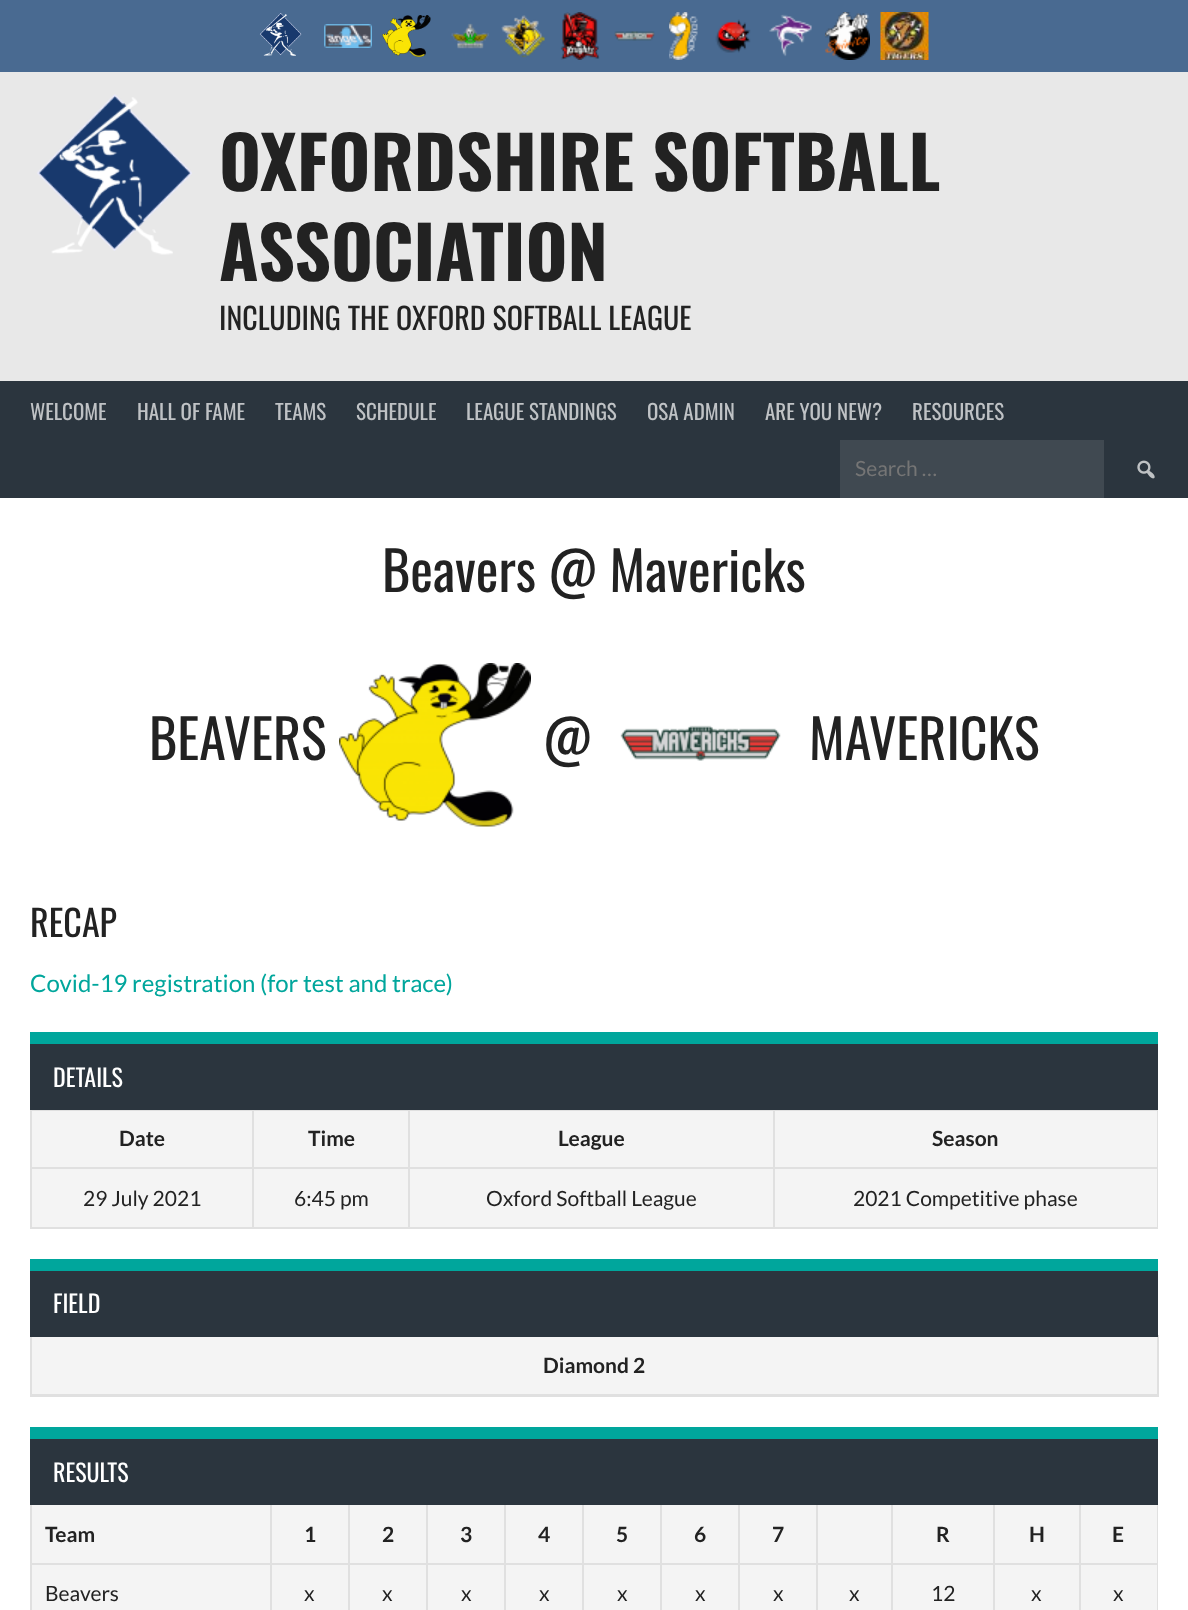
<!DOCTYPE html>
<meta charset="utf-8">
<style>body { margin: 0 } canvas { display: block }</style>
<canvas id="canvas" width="1188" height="1610"></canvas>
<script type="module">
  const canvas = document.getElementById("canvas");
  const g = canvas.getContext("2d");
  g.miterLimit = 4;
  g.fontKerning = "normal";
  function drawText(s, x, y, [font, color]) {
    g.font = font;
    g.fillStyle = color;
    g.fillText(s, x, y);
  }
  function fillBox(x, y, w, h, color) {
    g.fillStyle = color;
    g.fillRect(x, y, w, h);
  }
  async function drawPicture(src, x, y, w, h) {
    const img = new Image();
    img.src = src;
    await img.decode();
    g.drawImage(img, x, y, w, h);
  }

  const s1 = ["bold 72px Oswald", "#222222"];
  const s2 = ["30px Oswald", "#222222"];
  const s3 = ["21px Oswald", "#BFC2C5"];
  const s4 = ["21px Lato", "#757575"];
  const s5 = ["54px Oswald", "#222222"];
  const s6 = ["36px Oswald", "#222222"];
  const s7 = ["24px Lato", "#00A69C"];
  const s8 = ["24px Oswald", "#FFFFFF"];
  const s9 = ["bold 21px Lato", "#222222"];
  const s10 = ["21px Lato", "#222222"];

  fillBox(0, 0, 1188, 1610, "#E8E8E8");
  fillBox(0, 0, 1188, 72, "#496A91");
  await drawPicture("pic1.png", 259, 13, 43, 43);
  await drawPicture("pic2.png", 324, 24, 48, 24);
  await drawPicture("pic3.png", 382, 15, 49, 42);
  await drawPicture("pic4.png", 451, 23, 38, 26);
  await drawPicture("pic5.png", 501, 15, 44, 43);
  await drawPicture("pic6.png", 560, 12, 40, 48);
  await drawPicture("pic7.png", 614, 31, 41, 10);
  await drawPicture("pic8.png", 669, 12, 29, 48);
  await drawPicture("pic9.png", 715, 19, 36, 34);
  await drawPicture("pic10.png", 769, 14, 43, 43);
  await drawPicture("pic11.png", 825, 12, 45, 48);
  await drawPicture("pic12.png", 880, 12, 49, 48);
  await drawPicture("pic13.png", 37, 94, 155, 161);
  drawText("OXFORDSHIRE SOFTBALL", 219, 191, s1);
  drawText("ASSOCIATION", 219, 281, s1);
  drawText("INCLUDING THE OXFORD SOFTBALL LEAGUE", 219, 330, s2);
  fillBox(0, 381, 1188, 117, "#2B353E");
  drawText("WELCOME", 30, 420, s3);
  drawText("HALL OF FAME", 137, 420, s3);
  drawText("TEAMS", 275, 420, s3);
  drawText("SCHEDULE", 356, 420, s3);
  drawText("LEAGUE STANDINGS", 466, 420, s3);
  drawText("OSA ADMIN", 647, 420, s3);
  drawText("ARE YOU NEW?", 765, 420, s3);
  drawText("RESOURCES", 912, 420, s3);
  fillBox(840, 440, 264, 58, "#404951");
  drawText("Search …", 855, 476, s4);
  await drawPicture("pic14.png", 1137, 460, 18, 19);
  fillBox(0, 498, 1188, 1112, "#FFFFFF");
  drawText("Beavers @ Mavericks", 382, 592, s5);
  drawText("BEAVERS", 149, 760, s5);
  await drawPicture("pic15.png", 339, 663, 192, 164);
  drawText("@", 543, 760, s5);
  await drawPicture("pic16.png", 620, 725, 161, 36);
  drawText("MAVERICKS", 809, 760, s5);
  drawText("RECAP", 30, 937, s6);
  drawText("Covid-19 registration (for test and trace)", 30, 992, s7);
  fillBox(30, 1110, 1128, 1, "#E0E0E0");
  fillBox(1157, 1109, 1, 120, "#E0E0E0");
  fillBox(30, 1227, 1128, 2, "#E0E0E0");
  fillBox(30, 1109, 2, 120, "#E0E0E0");
  fillBox(32, 1111, 1125, 116, "#F4F4F4");
  fillBox(773, 1167, 385, 2, "#E0E0E0");
  fillBox(773, 1167, 2, 62, "#E0E0E0");
  fillBox(408, 1167, 366, 2, "#E0E0E0");
  fillBox(408, 1167, 2, 62, "#E0E0E0");
  fillBox(252, 1167, 158, 2, "#E0E0E0");
  fillBox(252, 1167, 2, 62, "#E0E0E0");
  fillBox(30, 1167, 224, 2, "#E0E0E0");
  fillBox(252, 1109, 2, 60, "#E0E0E0");
  fillBox(408, 1109, 2, 60, "#E0E0E0");
  fillBox(773, 1109, 2, 60, "#E0E0E0");
  fillBox(30, 1044, 1128, 66, "#2B353E");
  fillBox(30, 1032, 1128, 12, "#00A69C");
  drawText("DETAILS", 53, 1087, s8);
  drawText("Date", 119, 1146, s9);
  drawText("Time", 308, 1146, s9);
  drawText("League", 558, 1146, s9);
  drawText("Season", 932, 1146, s9);
  drawText("29 July 2021", 83, 1206, s10);
  drawText("6:45 pm", 294, 1206, s10);
  drawText("Oxford Softball League", 486, 1206, s10);
  drawText("2021 Competitive phase", 853, 1206, s10);
  fillBox(1157, 1335, 2, 62, "#E0E0E0");
  fillBox(30, 1396, 1128, 1, "#E0E0E0");
  fillBox(30, 1335, 2, 62, "#E0E0E0");
  fillBox(30, 1271, 1128, 66, "#2B353E");
  fillBox(30, 1259, 1128, 12, "#00A69C");
  drawText("FIELD", 53, 1313, s8);
  fillBox(32, 1337, 1125, 57, "#F4F4F4");
  drawText("Diamond 2", 543, 1373, s9);
  fillBox(30, 1394, 1128, 2, "#E0E0E0");
  fillBox(1157, 1503, 1, 107, "#E0E0E0");
  fillBox(30, 1503, 2, 107, "#E0E0E0");
  fillBox(32, 1505, 1125, 105, "#F4F4F4");
  fillBox(1079, 1563, 79, 2, "#E0E0E0");
  fillBox(1079, 1563, 2, 47, "#E0E0E0");
  fillBox(993, 1563, 87, 2, "#E0E0E0");
  fillBox(993, 1563, 2, 47, "#E0E0E0");
  fillBox(891, 1563, 104, 2, "#E0E0E0");
  fillBox(891, 1563, 2, 47, "#E0E0E0");
  fillBox(816, 1563, 77, 2, "#E0E0E0");
  fillBox(816, 1563, 2, 47, "#E0E0E0");
  fillBox(738, 1563, 80, 2, "#E0E0E0");
  fillBox(738, 1563, 2, 47, "#E0E0E0");
  fillBox(660, 1563, 80, 2, "#E0E0E0");
  fillBox(660, 1563, 2, 47, "#E0E0E0");
  fillBox(582, 1563, 80, 2, "#E0E0E0");
  fillBox(582, 1563, 2, 47, "#E0E0E0");
  fillBox(504, 1563, 80, 2, "#E0E0E0");
  fillBox(504, 1563, 2, 47, "#E0E0E0");
  fillBox(426, 1563, 80, 2, "#E0E0E0");
  fillBox(426, 1563, 2, 47, "#E0E0E0");
  fillBox(348, 1563, 80, 2, "#E0E0E0");
  fillBox(348, 1563, 2, 47, "#E0E0E0");
  fillBox(270, 1563, 80, 2, "#E0E0E0");
  fillBox(270, 1563, 2, 47, "#E0E0E0");
  fillBox(30, 1563, 242, 2, "#E0E0E0");
  fillBox(270, 1503, 2, 62, "#E0E0E0");
  fillBox(348, 1503, 2, 62, "#E0E0E0");
  fillBox(426, 1503, 2, 62, "#E0E0E0");
  fillBox(504, 1503, 2, 62, "#E0E0E0");
  fillBox(582, 1503, 2, 62, "#E0E0E0");
  fillBox(660, 1503, 2, 62, "#E0E0E0");
  fillBox(738, 1503, 2, 62, "#E0E0E0");
  fillBox(816, 1503, 2, 62, "#E0E0E0");
  fillBox(891, 1503, 2, 62, "#E0E0E0");
  fillBox(993, 1503, 2, 62, "#E0E0E0");
  fillBox(1079, 1503, 2, 62, "#E0E0E0");
  fillBox(30, 1439, 1128, 66, "#2B353E");
  fillBox(30, 1427, 1128, 12, "#00A69C");
  drawText("RESULTS", 53, 1482, s8);
  drawText("Team", 45, 1542, s9);
  drawText("1", 304, 1542, s9);
  drawText("2", 382, 1542, s9);
  drawText("3", 460, 1542, s9);
  drawText("4", 538, 1542, s9);
  drawText("5", 616, 1542, s9);
  drawText("6", 694, 1542, s9);
  drawText("7", 772, 1542, s9);
  drawText("R", 936, 1542, s9);
  drawText("H", 1029, 1542, s9);
  drawText("E", 1112, 1542, s9);
  drawText("Beavers", 45, 1601, s10);
  drawText("x", 304, 1601, s10);
  drawText("x", 382, 1601, s10);
  drawText("x", 461, 1601, s10);
  drawText("x", 539, 1601, s10);
  drawText("x", 617, 1601, s10);
  drawText("x", 695, 1601, s10);
  drawText("x", 773, 1601, s10);
  drawText("x", 849, 1601, s10);
  drawText("12", 931, 1601, s10);
  drawText("x", 1031, 1601, s10);
  drawText("x", 1113, 1601, s10);
</script>
